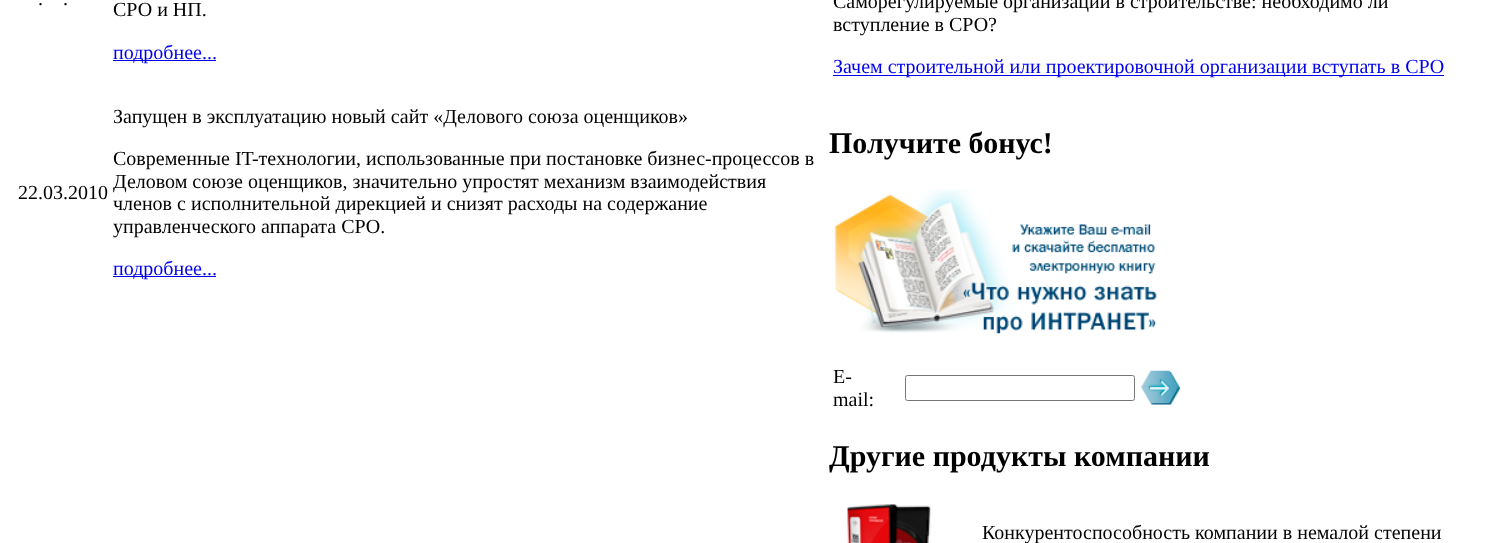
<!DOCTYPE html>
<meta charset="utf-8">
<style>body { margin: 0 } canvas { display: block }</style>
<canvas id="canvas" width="1501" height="543"></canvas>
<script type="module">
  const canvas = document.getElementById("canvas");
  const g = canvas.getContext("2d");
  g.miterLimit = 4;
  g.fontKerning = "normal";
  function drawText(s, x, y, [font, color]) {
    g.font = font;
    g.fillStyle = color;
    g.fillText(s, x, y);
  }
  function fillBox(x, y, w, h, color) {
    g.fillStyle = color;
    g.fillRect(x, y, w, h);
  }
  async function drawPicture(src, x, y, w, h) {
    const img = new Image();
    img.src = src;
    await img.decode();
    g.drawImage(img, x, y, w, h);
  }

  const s1 = ["20px Liberation Serif", "#000000"];
  const s2 = ["20px Liberation Serif", "#0000EE"];
  const s3 = ["bold 30px Liberation Serif", "#000000"];

  fillBox(0, 0, 1501, 543, "#FFFFFF");
  drawText(".", 38, 5, s1);
  drawText(".", 63, 5, s1);
  drawText("СРО и НП.", 113, 16, s1);
  fillBox(113, 60, 103, 1, "#0000EE");
  drawText("подробнее...", 113, 59, s2);
  drawText("22.03.2010", 18, 199, s1);
  drawText("Запущен в эксплуатацию новый сайт «Делового союза оценщиков»", 113, 123, s1);
  drawText("Современные IT-технологии, использованные при постановке бизнес-процессов в", 113, 165, s1);
  drawText("Деловом союзе оценщиков, значительно упростят механизм взаимодействия", 113, 188, s1);
  drawText("членов с исполнительной дирекцией и снизят расходы на содержание", 113, 210, s1);
  drawText("управленческого аппарата СРО.", 113, 233, s1);
  fillBox(113, 276, 103, 1, "#0000EE");
  drawText("подробнее...", 113, 275, s2);
  drawText("Саморегулируемые организации в строительстве: необходимо ли", 833, 8, s1);
  drawText("вступление в СРО?", 833, 31, s1);
  fillBox(833, 75, 611, 1, "#0000EE");
  drawText("Зачем строительной или проектировочной организации вступать в СРО", 833, 73, s2);
  drawText("Получите бонус!", 829, 153, s3);
  await drawPicture("pic1.png", 834, 189, 323, 145);
  drawText("E-", 833, 383, s1);
  drawText("mail:", 833, 406, s1);
  g.beginPath();
  g.roundRect(905.5, 375.5, 229, 25, 2);
  g.strokeStyle = "#767676";
  g.stroke();
  await drawPicture("pic2.png", 1141, 370, 39, 35);
  drawText("Другие продукты компании", 829, 466, s3);
  await drawPicture("pic3.png", 847, 504, 84, 39);
  drawText("Конкурентоспособность компании в немалой степени", 982, 539, s1);
</script>
